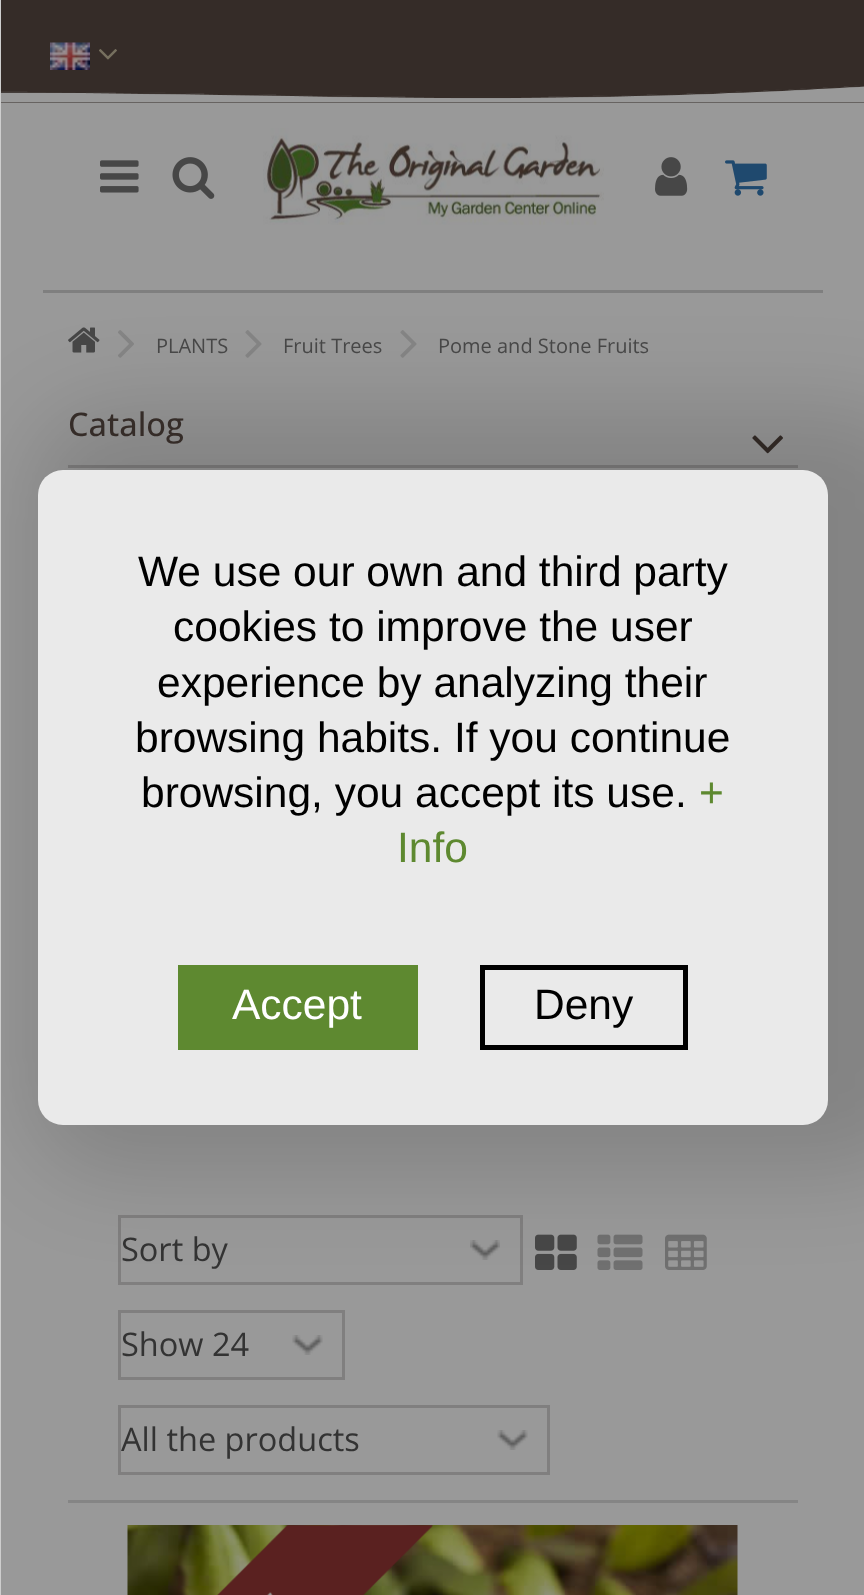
<!DOCTYPE html>
<meta charset="utf-8">
<style>body { margin: 0 } canvas { display: block }</style>
<canvas id="canvas" width="864" height="1595"></canvas>
<script type="module">
  const canvas = document.getElementById("canvas");
  const g = canvas.getContext("2d");
  g.miterLimit = 4;
  g.fontKerning = "normal";
  function drawText(s, x, y, [font, color]) {
    g.font = font;
    g.fillStyle = color;
    g.fillText(s, x, y);
  }
  function fillBox(x, y, w, h, color) {
    g.fillStyle = color;
    g.fillRect(x, y, w, h);
  }
  function fillRounded(x, y, w, h, r, color) {
    g.fillStyle = color;
    g.beginPath();
    g.roundRect(x, y, w, h, r);
    g.fill();
  }
  async function drawPicture(src, x, y, w, h) {
    const img = new Image();
    img.src = src;
    await img.decode();
    g.drawImage(img, x, y, w, h);
  }

  const s1 = ["20px Open Sans", "#474747"];
  const s2 = ["500 32.5px Open Sans", "#352C28"];
  const s3 = ["32.5px Open Sans", "#333333"];
  const s4 = ["42.5px Liberation Sans", "#000000"];
  const s5 = ["42.5px Liberation Sans", "#5E8930"];
  const s6 = ["42.5px Liberation Sans", "#FFFFFF"];

  fillBox(0, 0, 864, 1595, "#999999");
  fillBox(43, 290, 780, 3, "#7F7F7F");
  await drawPicture("pic9.png", 68, 327, 32, 26);
  await drawPicture("pic10.png", 118, 330, 16, 28);
  await drawPicture("pic11.png", 245, 330, 17, 28);
  await drawPicture("pic11.png", 400, 330, 17, 28);
  fillBox(68, 465, 730, 3, "#807F7F");
  await drawPicture("pic12.png", 752, 435, 31, 19);
  await drawPicture("pic13.png", 470, 1240, 30, 20);
  g.strokeStyle = "#807F7F";
  g.lineWidth = 3;
  g.strokeRect(119.5, 1216.5, 402, 67);
  await drawPicture("pic14.png", 535, 1234, 42, 36);
  await drawPicture("pic15.png", 597, 1234, 46, 36);
  await drawPicture("pic16.png", 665, 1234, 42, 36);
  await drawPicture("pic17.png", 292, 1335, 31, 20);
  g.strokeRect(119.5, 1311.5, 224, 67);
  g.fillStyle = "rgba(0, 0, 0, 0.14)";
  g.filter = "blur(45.5px)";
  g.beginPath();
  g.roundRect(30, 408, 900, 765, 80);
  g.fill();
  g.filter = "none";
  fillBox(0, 0, 1, 1595, "#CECECE");
  fillBox(1, 0, 863, 103, "#352C28");
  await drawPicture("pic1.png", 50, 42, 40, 28);
  await drawPicture("pic2.png", 99, 49, 18, 11);
  await drawPicture("pic3.png", 1, 85, 863, 18);
  await drawPicture("pic4.png", 100, 160, 39, 33);
  await drawPicture("pic5.png", 172, 157, 43, 42);
  await drawPicture("pic6.png", 263, 128, 341, 97);
  await drawPicture("pic7.png", 655, 157, 33, 39);
  await drawPicture("pic8.png", 725, 160, 42, 36);
  drawText("PLANTS", 156, 353, s1);
  drawText("Fruit Trees", 283, 353, s1);
  drawText("Pome and Stone Fruits", 438, 353, s1);
  drawText("Catalog", 68, 436, s2);
  fillBox(68, 1500, 730, 3, "#858585");
  drawText("Sort by", 121, 1261, s3);
  drawText("Show 24", 121, 1356, s3);
  await drawPicture("pic18.png", 497, 1430, 31, 20);
  g.strokeRect(119.5, 1406.5, 429, 67);
  drawText("All the products", 121, 1451, s3);
  await drawPicture("pic19.png", 127, 1525, 611, 70);
  await drawPicture("pic20.png", 217, 1525, 216, 70);
  fillRounded(38, 470, 790, 655, 25, "#EAEAEA");
  drawText("We use our own and third party", 138, 586, s4);
  drawText("cookies to improve the user", 173, 641, s4);
  drawText("experience by analyzing their", 157, 697, s4);
  drawText("browsing habits. If you continue", 135, 752, s4);
  drawText("browsing, you accept its use.", 141, 807, s4);
  drawText("+", 699, 807, s5);
  drawText("Info", 397, 862, s5);
  fillBox(178, 965, 240, 85, "#5E8930");
  drawText("Accept", 232, 1019, s6);
  g.strokeStyle = "#000000";
  g.lineWidth = 5;
  g.strokeRect(482.5, 967.5, 203, 80);
  drawText("Deny", 534, 1019, s4);
</script>
